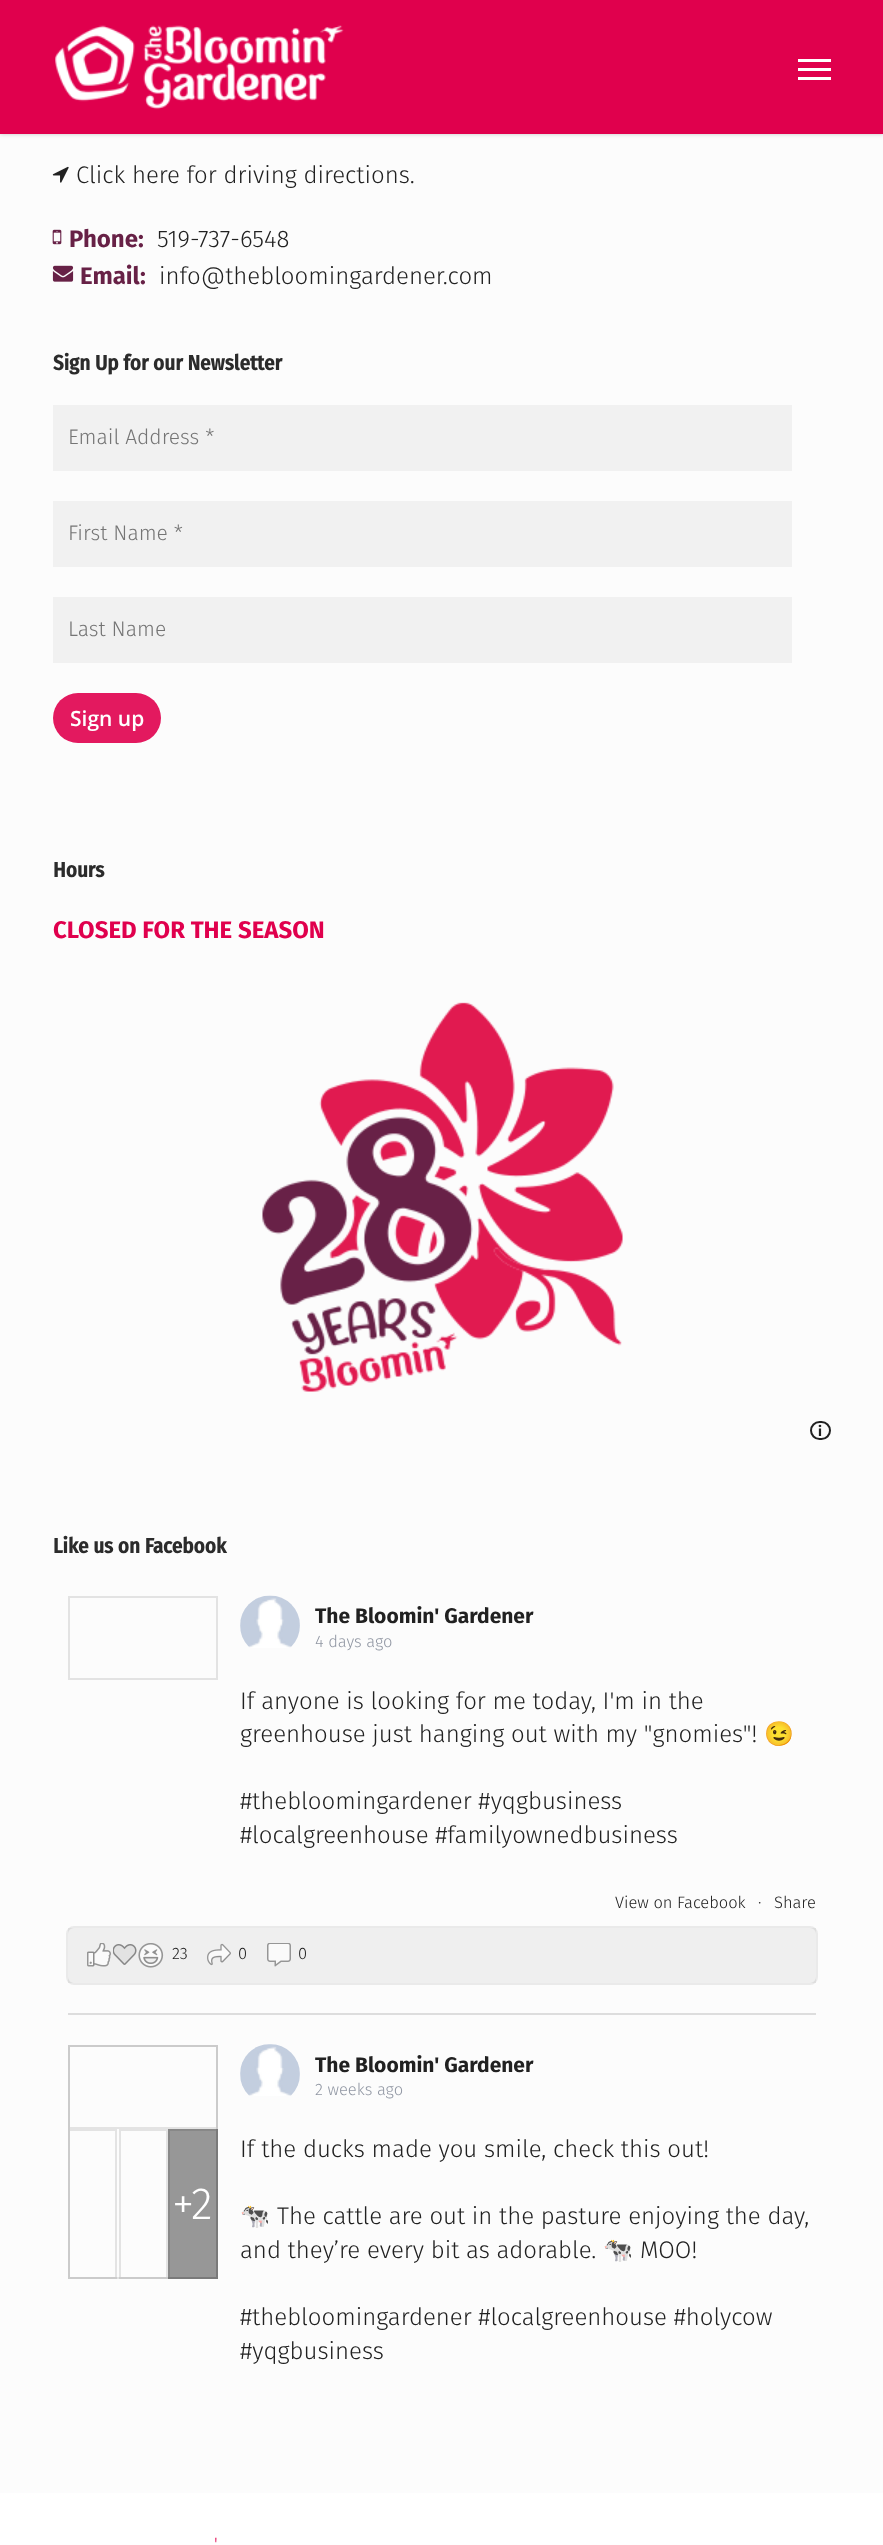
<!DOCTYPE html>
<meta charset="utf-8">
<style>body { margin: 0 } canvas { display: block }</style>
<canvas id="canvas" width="883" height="2545"></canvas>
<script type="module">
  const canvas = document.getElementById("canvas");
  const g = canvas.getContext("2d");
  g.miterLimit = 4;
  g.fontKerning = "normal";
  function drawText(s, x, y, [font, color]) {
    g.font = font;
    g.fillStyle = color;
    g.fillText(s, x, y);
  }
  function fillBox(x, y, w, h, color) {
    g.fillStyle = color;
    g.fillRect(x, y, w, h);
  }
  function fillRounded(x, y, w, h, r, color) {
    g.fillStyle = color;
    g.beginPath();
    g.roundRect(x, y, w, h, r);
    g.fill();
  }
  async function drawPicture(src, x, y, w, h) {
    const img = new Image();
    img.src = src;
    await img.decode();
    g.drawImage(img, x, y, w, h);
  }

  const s1 = ["300 24px Fira Sans", "#212121"];
  const s2 = ["bold 24px Fira Sans", "#672146"];
  const s3 = ["bold 21px Fira Sans Condensed", "#2B2B2B"];
  const s4 = ["300 21px Fira Sans", "#757575"];
  const s5 = ["600 21px Open Sans", "#FFFFFF"];
  const s6 = ["bold 24px Fira Sans", "#E0004D"];
  const s7 = ["bold 14px Fira Sans", "#212121"];
  const s8 = ["bold 21px Fira Sans", "#212121"];
  const s9 = ["300 16.5px Fira Sans", "#9197A3"];
  const s10 = ["24px Noto Color Emoji", "#212121"];
  const s11 = ["300 16.5px Fira Sans", "#212121"];
  const s12 = ["300 45px Fira Sans", "#FFFFFF"];
  const s13 = ["300 18px Fira Sans", "#E0004D"];

  fillBox(0, 0, 883, 2545, "#FCFCFC");
  g.fillStyle = "rgba(0, 0, 0, 0.22)";
  g.filter = "blur(2px)";
  g.beginPath();
  g.rect(0, 0, 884, 134);
  g.fill();
  g.filter = "none";
  fillBox(0, 0, 883, 134, "#E0004D");
  await drawPicture("pic1.png", 55, 25, 289, 85);
  fillBox(798, 59, 33, 3, "#FFFFFF");
  fillBox(798, 77, 33, 3, "#FFFFFF");
  fillBox(798, 68, 33, 3, "#FFFFFF");
  await drawPicture("pic2.png", 52, 166, 17, 17);
  drawText("Click here for driving directions.", 76, 183, s1);
  await drawPicture("pic3.png", 52, 229, 10, 16);
  drawText("Phone:", 69, 247, s2);
  drawText("519-737-6548", 157, 247, s1);
  await drawPicture("pic4.png", 52, 265, 22, 17);
  drawText("Email:", 80, 284, s2);
  drawText("info@thebloomingardener.com", 159, 284, s1);
  drawText("Sign Up for our Newsletter", 53, 370, s3);
  fillBox(53, 405, 739, 66, "#F1F1F1");
  drawText("Email Address *", 68, 444, s4);
  fillBox(53, 501, 739, 66, "#F1F1F1");
  drawText("First Name *", 68, 540, s4);
  fillBox(53, 597, 739, 66, "#F1F1F1");
  drawText("Last Name", 68, 636, s4);
  fillRounded(53, 693, 108, 50, 25, "#E3195F");
  drawText("Sign up", 70, 726, s5);
  drawText("Hours", 53, 877, s3);
  drawText("CLOSED FOR THE SEASON", 53, 938, s6);
  await drawPicture("pic5.png", 262, 1002, 361, 390);
  g.beginPath();
  g.roundRect(811, 1422, 19, 17, 8.5);
  g.strokeStyle = "#212121";
  g.lineWidth = 2;
  g.stroke();
  drawText("i", 818, 1436, s7);
  drawText("Like us on Facebook", 53, 1553, s3);
  fillBox(68, 2013, 748, 2, "#DDDDDD");
  g.strokeStyle = "#E3E3E3";
  g.strokeRect(69, 1597, 148, 82);
  await drawPicture("pic6.png", 240, 1595, 60, 53);
  drawText("The Bloomin' Gardener", 315, 1623, s8);
  drawText("4 days ago", 315, 1647, s9);
  drawText("If anyone is looking for me today, I'm in the", 240, 1709, s1);
  drawText("greenhouse just hanging out with my \"gnomies\"!", 240, 1742, s1);
  drawText("😉", 764, 1742, s10);
  drawText("#thebloomingardener #yqgbusiness", 240, 1809, s1);
  drawText("#localgreenhouse #familyownedbusiness", 240, 1843, s1);
  drawText("View on Facebook", 615, 1908, s11);
  drawText("·", 758, 1908, s11);
  drawText("Share", 774, 1908, s11);
  g.beginPath();
  g.roundRect(67, 1927, 750, 57, 7);
  g.strokeStyle = "#EAEAEA";
  g.stroke();
  fillBox(68, 1928, 748, 55, "rgba(0, 0, 0, 0.05)");
  await drawPicture("pic7.png", 87, 1943, 24, 24);
  await drawPicture("pic8.png", 87, 1943, 24, 24);
  await drawPicture("pic9.png", 113, 1944, 24, 21);
  await drawPicture("pic10.png", 113, 1944, 24, 21);
  await drawPicture("pic11.png", 138, 1943, 25, 25);
  await drawPicture("pic12.png", 138, 1943, 26, 25);
  drawText("23", 172, 1959, s11);
  await drawPicture("pic14.png", 207, 1944, 24, 21);
  await drawPicture("pic13.png", 207, 1943, 24, 23);
  drawText("0", 238, 1959, s11);
  await drawPicture("pic15.png", 267, 1943, 24, 23);
  await drawPicture("pic16.png", 267, 1943, 24, 24);
  drawText("0", 298, 1959, s11);
  g.strokeStyle = "#E3E3E3";
  g.strokeRect(69, 2046, 148, 82);
  g.strokeRect(69, 2130, 47, 148);
  g.strokeRect(120, 2130, 47, 148);
  fillBox(170, 2131, 46, 146, "#979797");
  g.strokeStyle = "#888888";
  g.strokeRect(169, 2130, 48, 148);
  g.strokeStyle = "rgba(0, 0, 0, 0.1)";
  g.strokeRect(69, 2046, 148, 232);
  drawText("+2", 172, 2219, s12);
  await drawPicture("pic17.png", 240, 2044, 60, 52);
  drawText("The Bloomin' Gardener", 315, 2072, s8);
  drawText("2 weeks ago", 315, 2095, s9);
  drawText("If the ducks made you smile, check this out!", 240, 2157, s1);
  drawText("🐄", 240, 2224, s10);
  drawText("The cattle are out in the pasture enjoying the day,", 277, 2224, s1);
  drawText("and they’re every bit as adorable.", 240, 2258, s1);
  drawText("🐄", 603, 2258, s10);
  drawText("MOO!", 640, 2258, s1);
  drawText("#thebloomingardener #localgreenhouse #holycow", 240, 2325, s1);
  drawText("#yqgbusiness", 240, 2359, s1);
  fillBox(0, 2493, 883, 52, "#FFFFFF");
  drawText("'", 214, 2550, s13);
</script>
